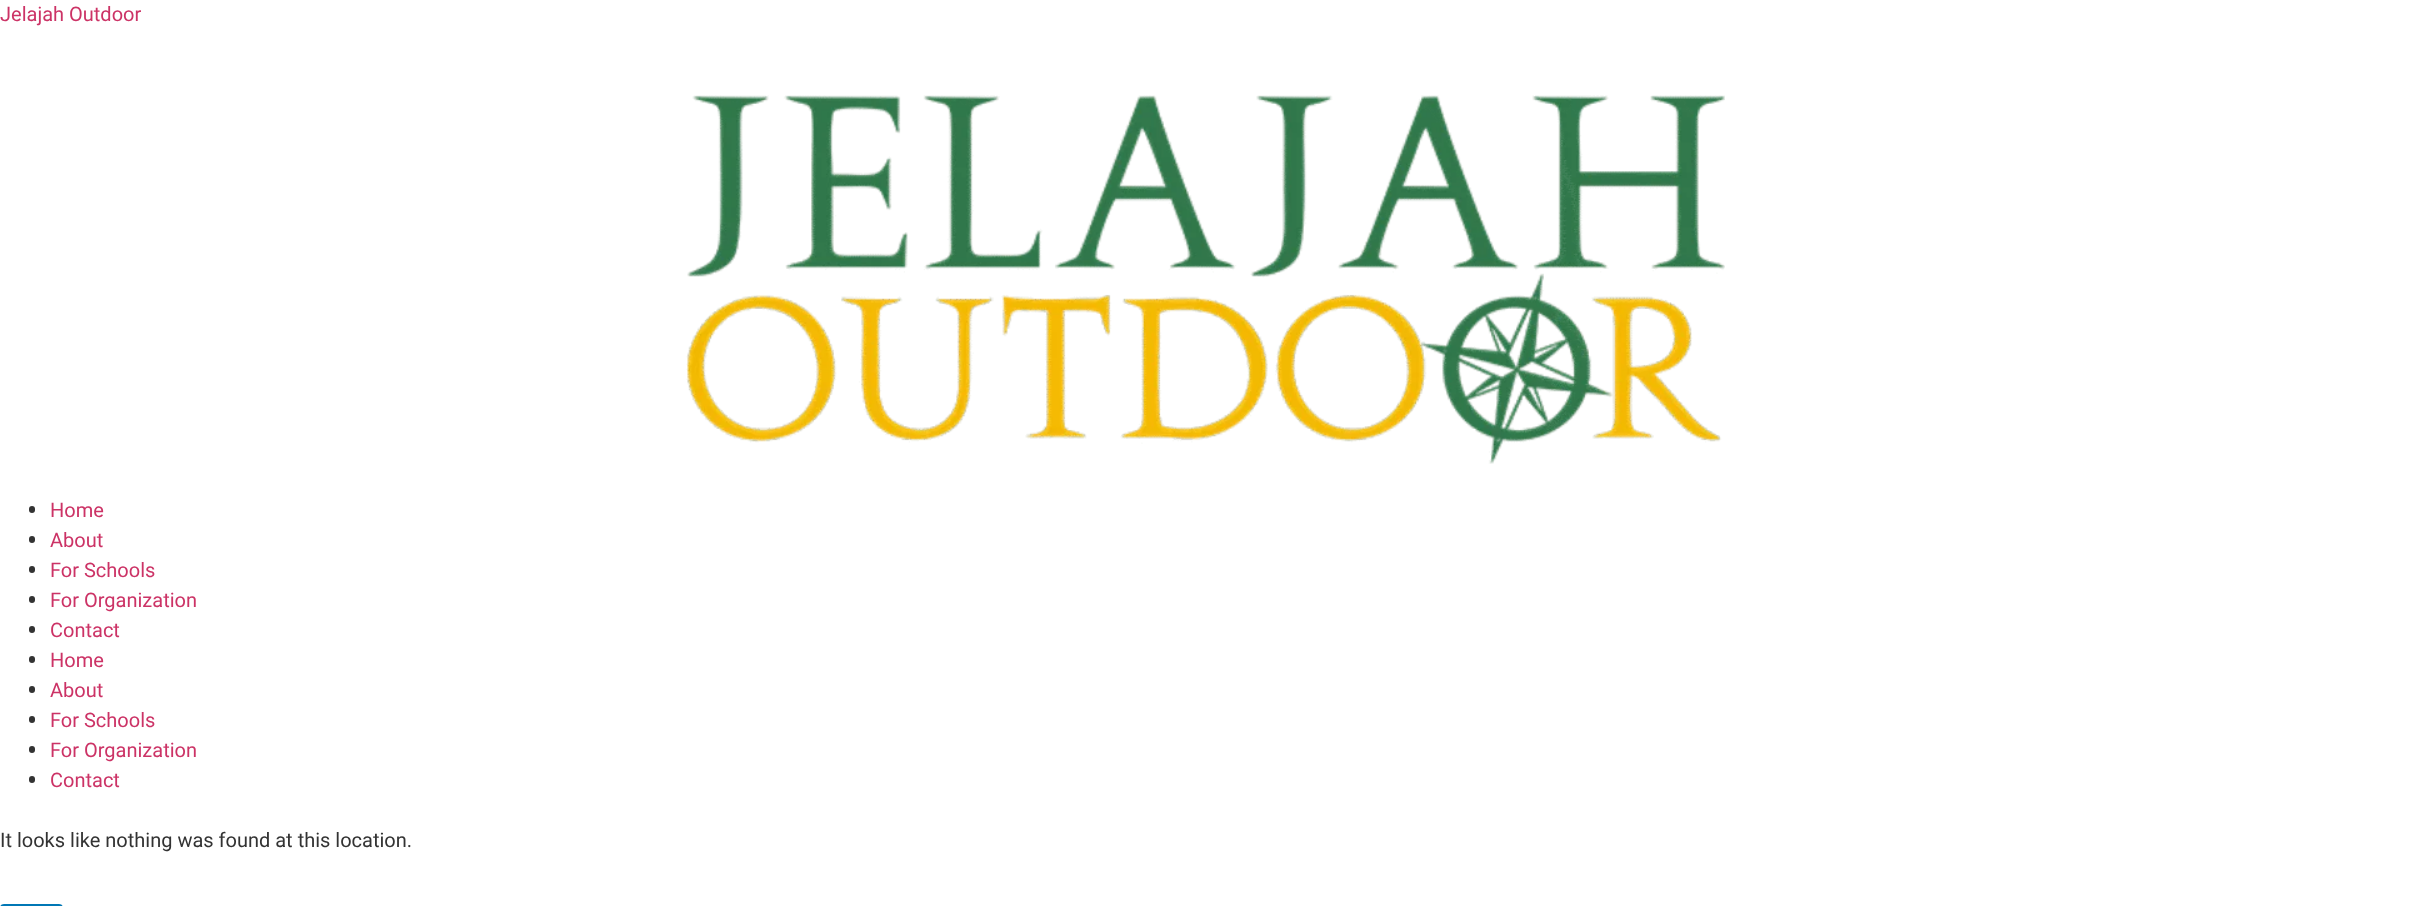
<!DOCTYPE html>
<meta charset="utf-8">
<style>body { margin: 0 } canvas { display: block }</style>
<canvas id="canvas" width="2411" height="906"></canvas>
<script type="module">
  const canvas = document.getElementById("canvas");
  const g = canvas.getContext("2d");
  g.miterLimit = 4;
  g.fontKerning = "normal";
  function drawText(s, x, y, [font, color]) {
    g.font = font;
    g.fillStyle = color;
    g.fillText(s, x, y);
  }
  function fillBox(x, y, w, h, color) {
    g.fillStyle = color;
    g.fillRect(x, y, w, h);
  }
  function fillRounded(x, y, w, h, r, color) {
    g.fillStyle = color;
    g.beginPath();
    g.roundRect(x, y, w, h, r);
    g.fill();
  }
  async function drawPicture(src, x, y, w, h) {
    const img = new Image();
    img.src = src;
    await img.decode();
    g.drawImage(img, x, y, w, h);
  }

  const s1 = ["20px Roboto", "#CC3366"];
  const s2 = ["20px Roboto", "#333333"];

  fillBox(0, 0, 2411, 906, "#FFFFFF");
  drawText("Jelajah Outdoor", 0, 21, s1);
  await drawPicture("pic1.png", 686, 95, 1039, 369);
  fillRounded(29, 506, 6, 7, 3, "#333333");
  drawText("Home", 50, 517, s1);
  fillRounded(29, 536, 6, 7, 3, "#333333");
  drawText("About", 50, 547, s1);
  fillRounded(29, 566, 6, 7, 3, "#333333");
  drawText("For Schools", 50, 577, s1);
  fillRounded(29, 596, 6, 7, 3, "#333333");
  drawText("For Organization", 50, 607, s1);
  fillRounded(29, 626, 6, 7, 3, "#333333");
  drawText("Contact", 50, 637, s1);
  fillRounded(29, 656, 6, 7, 3, "#333333");
  drawText("Home", 50, 667, s1);
  fillRounded(29, 686, 6, 7, 3, "#333333");
  drawText("About", 50, 697, s1);
  fillRounded(29, 716, 6, 7, 3, "#333333");
  drawText("For Schools", 50, 727, s1);
  fillRounded(29, 746, 6, 7, 3, "#333333");
  drawText("For Organization", 50, 757, s1);
  fillRounded(29, 776, 6, 7, 3, "#333333");
  drawText("Contact", 50, 787, s1);
  drawText("It looks like nothing was found at this location.", 0, 847, s2);
  fillRounded(0, 904, 63, 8, 6, "#0077B5");
</script>
